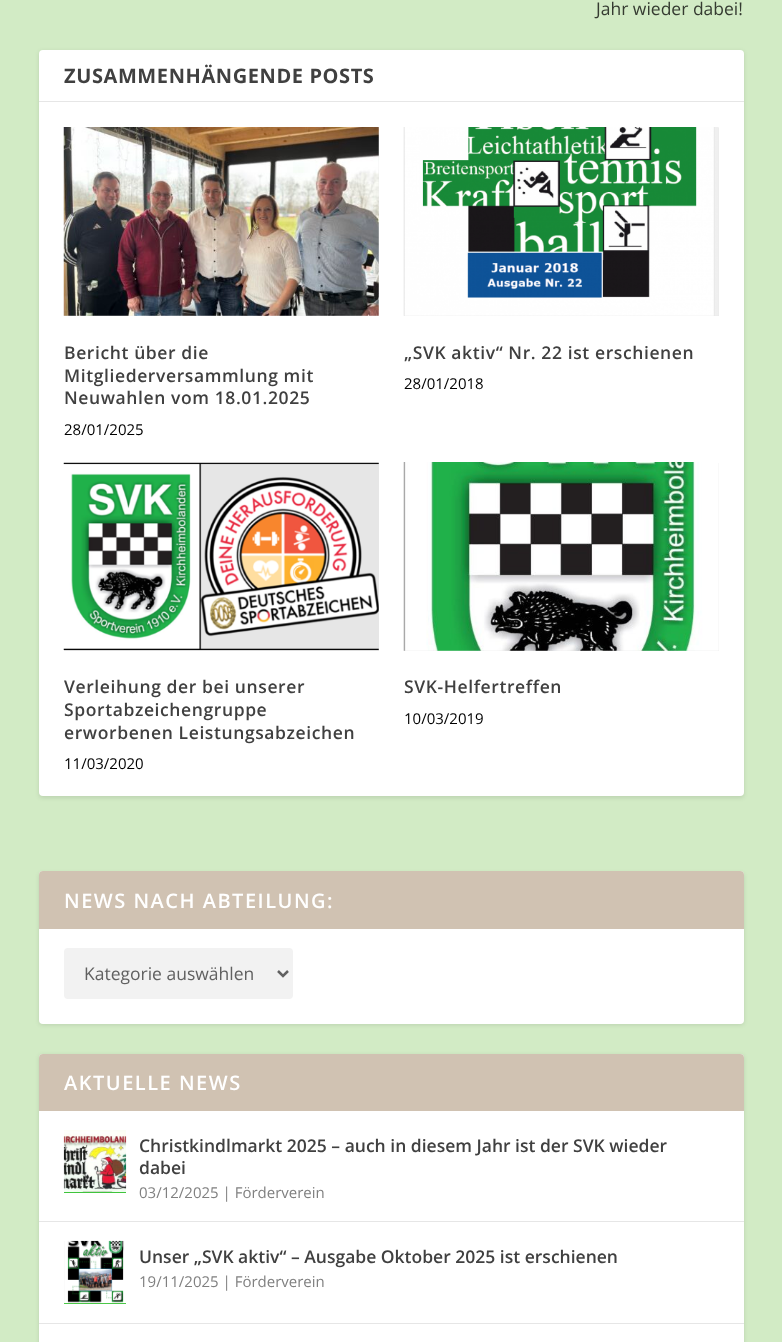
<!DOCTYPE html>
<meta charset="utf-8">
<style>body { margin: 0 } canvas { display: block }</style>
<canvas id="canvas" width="782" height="1342"></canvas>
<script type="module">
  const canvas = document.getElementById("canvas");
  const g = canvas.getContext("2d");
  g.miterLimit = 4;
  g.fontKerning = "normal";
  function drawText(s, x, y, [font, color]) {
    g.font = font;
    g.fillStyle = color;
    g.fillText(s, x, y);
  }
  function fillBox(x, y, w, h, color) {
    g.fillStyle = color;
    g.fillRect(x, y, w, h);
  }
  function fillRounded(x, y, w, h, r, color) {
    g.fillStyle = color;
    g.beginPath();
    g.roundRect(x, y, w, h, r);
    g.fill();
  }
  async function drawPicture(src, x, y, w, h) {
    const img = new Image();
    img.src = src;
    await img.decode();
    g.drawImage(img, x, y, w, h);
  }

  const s1 = ["17.5px Open Sans", "#353B31"];
  const s2 = ["bold 20px Open Sans", "#404040"];
  const s3 = ["600 17.5px Open Sans", "#404040"];
  const s4 = ["15px Open Sans", "#000000"];
  const s5 = ["600 20px Open Sans", "#FFFFFF"];
  const s6 = ["17.5px Open Sans", "#616161"];
  const s7 = ["15px Open Sans", "#808080"];

  fillBox(0, 0, 782, 1342, "#D2EBC5");
  drawText("Jahr wieder dabei!", 596, 15, s1);
  g.fillStyle = "rgba(0, 0, 0, 0.1)";
  g.filter = "blur(2px)";
  g.beginPath();
  g.roundRect(39, 51, 705, 747, 4);
  g.fill();
  g.filter = "none";
  fillRounded(39, 50, 705, 746, 4, "#FFFFFF");
  fillBox(39, 101, 705, 1, "#E6E6E6");
  g.letterSpacing = "0.6px";
  drawText("ZUSAMMENHÄNGENDE POSTS", 64, 83, s2);
  fillBox(64, 128, 315, 188, "#E6E6E6");
  await drawPicture("pic1.png", 63, 127, 316, 189);
  drawText("Bericht über die", 64, 359, s3);
  drawText("Mitgliederversammlung mit", 64, 382, s3);
  drawText("Neuwahlen vom 18.01.2025", 64, 404, s3);
  g.letterSpacing = "0px";
  drawText("28/01/2025", 64, 435, s4);
  fillBox(404, 128, 315, 188, "#E6E6E6");
  await drawPicture("pic2.png", 403, 127, 316, 189);
  g.letterSpacing = "0.6px";
  drawText("„SVK aktiv“ Nr. 22 ist erschienen", 404, 359, s3);
  g.letterSpacing = "0px";
  drawText("28/01/2018", 404, 389, s4);
  fillBox(64, 463, 315, 188, "#E6E6E6");
  await drawPicture("pic3.png", 63, 462, 316, 189);
  g.letterSpacing = "0.6px";
  drawText("Verleihung der bei unserer", 64, 693, s3);
  drawText("Sportabzeichengruppe", 64, 716, s3);
  drawText("erworbenen Leistungsabzeichen", 64, 739, s3);
  g.letterSpacing = "0px";
  drawText("11/03/2020", 64, 769, s4);
  fillBox(404, 463, 315, 188, "#E6E6E6");
  await drawPicture("pic4.png", 403, 462, 316, 189);
  g.letterSpacing = "0.6px";
  drawText("SVK-Helfertreffen", 404, 693, s3);
  g.letterSpacing = "0px";
  drawText("10/03/2019", 404, 724, s4);
  g.fillStyle = "rgba(0, 0, 0, 0.1)";
  g.filter = "blur(2px)";
  g.beginPath();
  g.roundRect(39, 873, 705, 152, 4);
  g.fill();
  g.filter = "none";
  fillRounded(39, 871, 705, 153, 4, "#FFFFFF");
  g.fillStyle = "#D0C2B2";
  g.beginPath();
  g.roundRect(39, 871, 705, 58, [4, 4, 0, 0]);
  g.fill();
  g.letterSpacing = "1.5px";
  drawText("NEWS NACH ABTEILUNG:", 64, 908, s5);
  fillRounded(64, 948, 229, 51, 4, "#F2F2F2");
  g.beginPath();
  g.moveTo(278, 971);
  g.lineTo(283, 976);
  g.lineTo(288, 971);
  g.strokeStyle = "#616161";
  g.lineWidth = 2.5;
  g.stroke();
  g.letterSpacing = "0px";
  drawText("Kategorie auswählen", 84, 980, s6);
  g.fillStyle = "rgba(0, 0, 0, 0.1)";
  g.filter = "blur(2px)";
  g.beginPath();
  g.roundRect(39, 1055, 705, 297, 4);
  g.fill();
  g.filter = "none";
  fillRounded(39, 1054, 705, 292, 4, "#FFFFFF");
  g.fillStyle = "#D0C2B2";
  g.beginPath();
  g.roundRect(39, 1054, 705, 57, [4, 4, 0, 0]);
  g.fill();
  g.letterSpacing = "1.5px";
  drawText("AKTUELLE NEWS", 64, 1090, s5);
  fillBox(39, 1221, 705, 1, "#E6E6E6");
  fillBox(64, 1192, 62, 1, "#3FC43C");
  await drawPicture("pic5.png", 63, 1130, 64, 62);
  g.letterSpacing = "0px";
  drawText("Christkindlmarkt 2025 – auch in diesem Jahr ist der SVK wieder", 139, 1152, s3);
  drawText("dabei", 139, 1174, s3);
  drawText("03/12/2025 | Förderverein", 139, 1198, s7);
  fillBox(39, 1323, 705, 1, "#E6E6E6");
  fillBox(64, 1303, 62, 1, "#3FC43C");
  await drawPicture("pic6.png", 64, 1240, 62, 64);
  drawText("Unser „SVK aktiv“ – Ausgabe Oktober 2025 ist erschienen", 139, 1263, s3);
  drawText("19/11/2025 | Förderverein", 139, 1287, s7);
</script>
